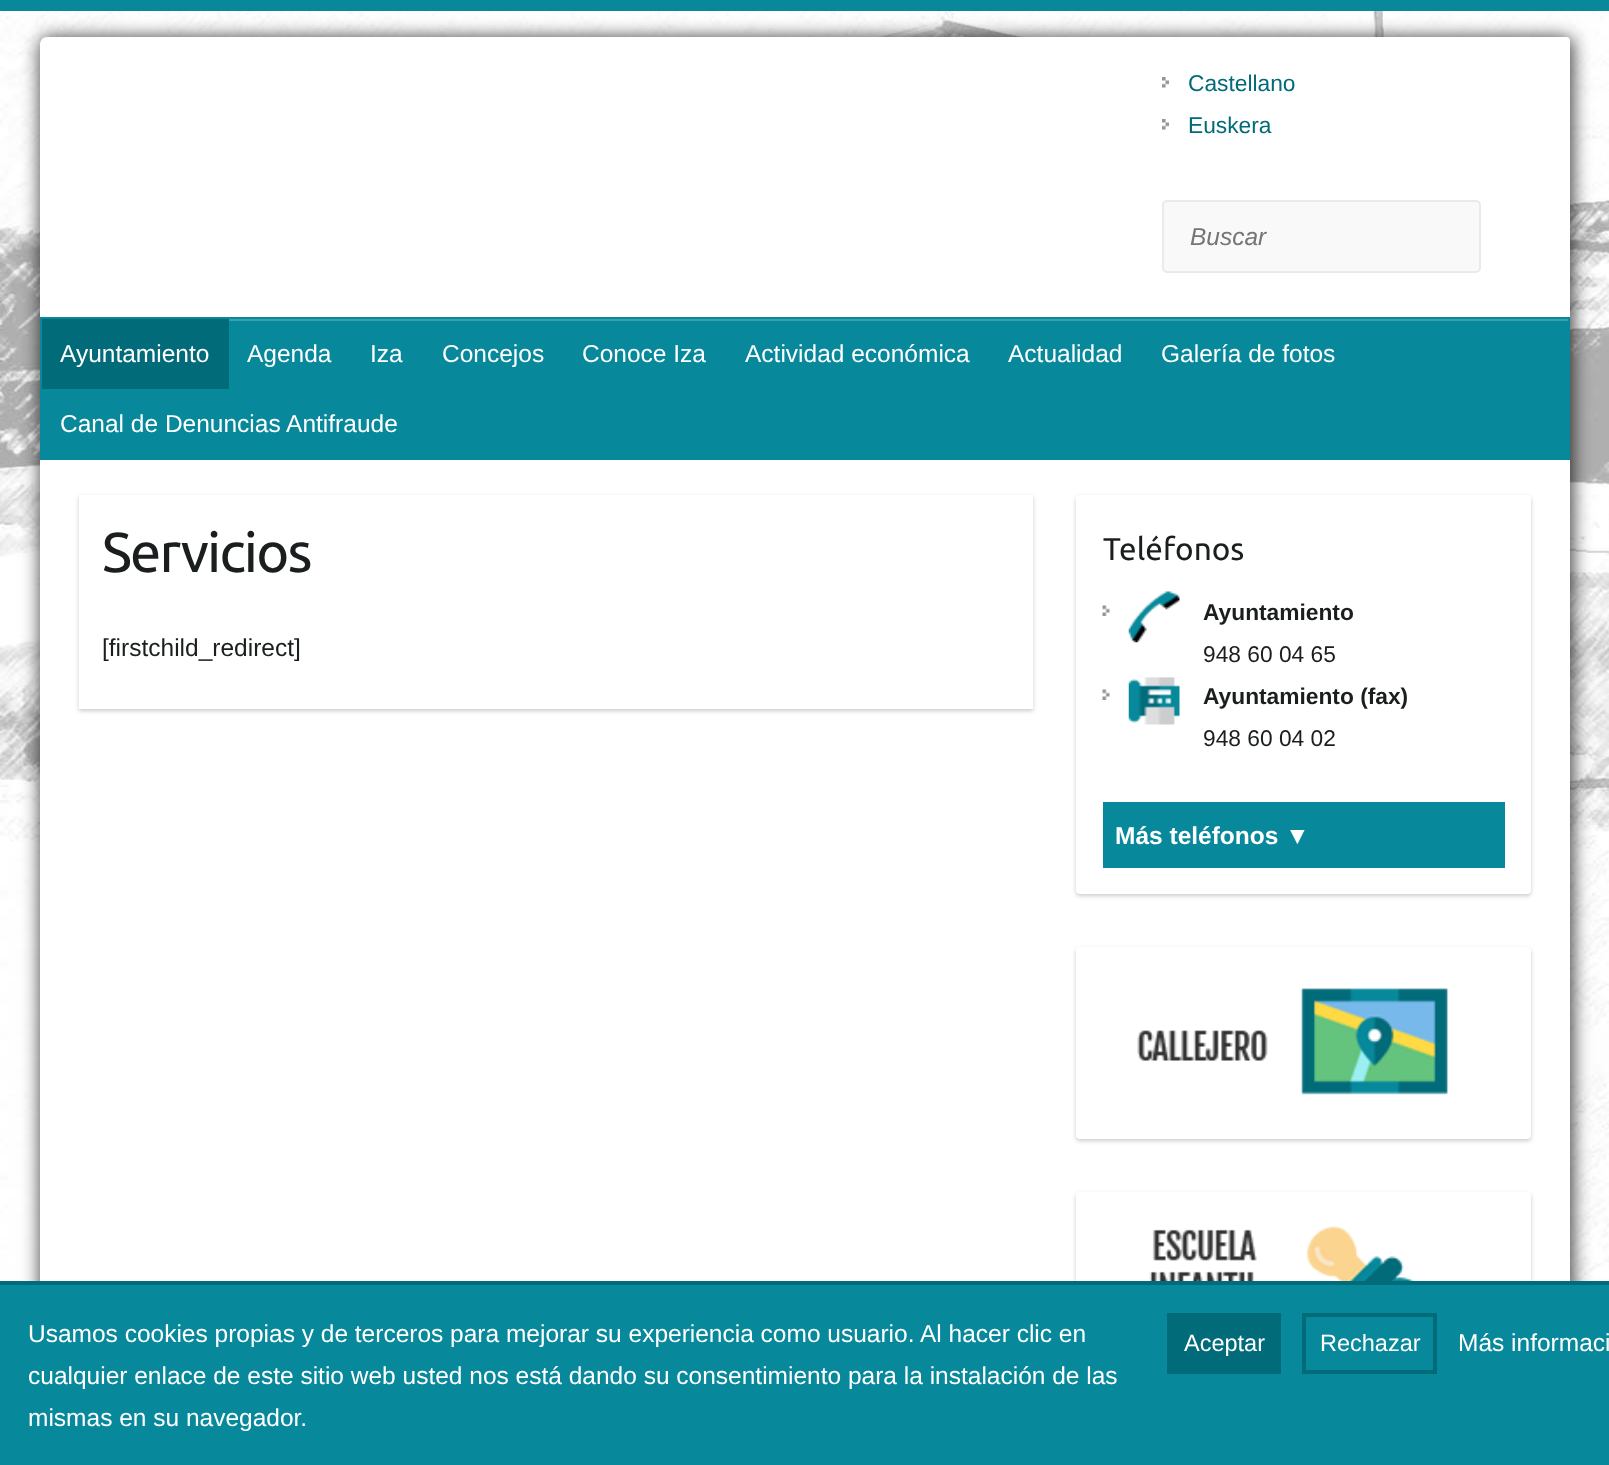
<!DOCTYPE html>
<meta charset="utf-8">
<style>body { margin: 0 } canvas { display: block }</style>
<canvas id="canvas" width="1609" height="1465"></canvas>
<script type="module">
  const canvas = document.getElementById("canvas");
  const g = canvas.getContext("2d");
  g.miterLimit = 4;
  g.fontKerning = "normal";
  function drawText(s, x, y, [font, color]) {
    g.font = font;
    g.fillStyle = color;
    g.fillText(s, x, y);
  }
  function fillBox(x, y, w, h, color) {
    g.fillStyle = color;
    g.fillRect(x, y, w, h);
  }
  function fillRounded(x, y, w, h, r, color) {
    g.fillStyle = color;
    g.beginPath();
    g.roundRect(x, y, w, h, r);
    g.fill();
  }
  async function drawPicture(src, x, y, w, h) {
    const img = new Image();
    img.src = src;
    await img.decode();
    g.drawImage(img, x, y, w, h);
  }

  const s1 = ["22.75px Liberation Sans", "#026B7A"];
  const s2 = ["italic 24.5px Liberation Sans", "#757575"];
  const s3 = ["24.5px Liberation Sans", "#FFFFFF"];
  const s4 = ["56px Ubuntu", "#1B1E1F"];
  const s5 = ["24.5px Liberation Sans", "#1B1E1F"];
  const s6 = ["31.5px Ubuntu", "#1B1E1F"];
  const s7 = ["bold 22.75px Liberation Sans", "#1B1E1F"];
  const s8 = ["22.75px Liberation Sans", "#1B1E1F"];
  const s9 = ["bold 24.5px Liberation Sans", "#FFFFFF"];
  const s10 = ["23.5px Liberation Sans", "#FFFFFF"];

  fillBox(0, 0, 1609, 1465, "#FFFFFF");
  await drawPicture("pic1.png", 0, 11, 1609, 1270);
  fillBox(0, 0, 1609, 11, "#07889B");
  g.fillStyle = "rgba(0, 0, 0, 0.75)";
  g.filter = "blur(9px)";
  g.beginPath();
  g.roundRect(40, 37, 1533, 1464, 9);
  g.fill();
  g.filter = "none";
  fillRounded(40, 37, 1530, 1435, 7, "#FFFFFF");
  fillRounded(1136, 37, 434, 136, 4, "#FFFFFF");
  await drawPicture("pic2.png", 1162, 77, 7, 11);
  drawText("Castellano", 1188, 91, s1);
  await drawPicture("pic2.png", 1162, 119, 7, 11);
  drawText("Euskera", 1188, 133, s1);
  g.fillStyle = "#F9F9F9";
  g.beginPath();
  g.roundRect(1163, 201, 317, 71, 4);
  g.fill();
  g.strokeStyle = "#EAEAEA";
  g.lineWidth = 2;
  g.stroke();
  drawText("Buscar", 1190, 245, s2);
  fillBox(40, 317, 1530, 143, "#07889B");
  fillBox(229, 319, 1339, 2, "#39A0AF");
  fillBox(42, 319, 187, 70, "#026B7A");
  drawText("Ayuntamiento", 60, 362, s3);
  drawText("Agenda", 247, 362, s3);
  drawText("Iza", 370, 362, s3);
  drawText("Concejos", 442, 362, s3);
  drawText("Conoce Iza", 582, 362, s3);
  drawText("Actividad económica", 745, 362, s3);
  drawText("Actualidad", 1008, 362, s3);
  drawText("Galería de fotos", 1161, 362, s3);
  drawText("Canal de Denuncias Antifraude", 60, 432, s3);
  g.fillStyle = "rgba(0, 0, 0, 0.2)";
  g.filter = "blur(2px)";
  g.beginPath();
  g.rect(79, 497, 954, 214);
  g.fill();
  g.filter = "none";
  fillBox(79, 495, 954, 214, "#FFFFFF");
  g.letterSpacing = "-1.75px";
  drawText("Servicios", 102, 572, s4);
  g.letterSpacing = "0px";
  drawText("[firstchild_redirect]", 102, 656, s5);
  g.fillStyle = "rgba(0, 0, 0, 0.2)";
  g.filter = "blur(2px)";
  g.beginPath();
  g.roundRect(1076, 497, 455, 399, 4);
  g.fill();
  g.filter = "none";
  fillRounded(1076, 495, 455, 399, 4, "#FFFFFF");
  drawText("Teléfonos", 1103, 560, s6);
  await drawPicture("pic3.png", 1102, 605, 8, 11);
  await drawPicture("pic4.png", 1128, 591, 52, 52);
  drawText("Ayuntamiento", 1203, 620, s7);
  drawText("948 60 04 65", 1203, 662, s8);
  await drawPicture("pic3.png", 1102, 689, 8, 11);
  await drawPicture("pic5.png", 1128, 677, 52, 48);
  drawText("Ayuntamiento (fax)", 1203, 704, s7);
  drawText("948 60 04 02", 1203, 746, s8);
  fillBox(1103, 802, 402, 66, "#07889B");
  drawText("Más teléfonos ▼", 1115, 844, s9);
  g.fillStyle = "rgba(0, 0, 0, 0.2)";
  g.filter = "blur(2px)";
  g.beginPath();
  g.roundRect(1076, 949, 455, 192, 4);
  g.fill();
  g.filter = "none";
  fillRounded(1076, 947, 455, 192, 4, "#FFFFFF");
  await drawPicture("pic6.png", 1137, 988, 311, 107);
  g.fillStyle = "rgba(0, 0, 0, 0.2)";
  g.filter = "blur(2px)";
  g.beginPath();
  g.roundRect(1076, 1194, 455, 192, 4);
  g.fill();
  g.filter = "none";
  fillRounded(1076, 1192, 455, 192, 4, "#FFFFFF");
  await drawPicture("pic7.png", 1149, 1226, 266, 55);
  fillBox(0, 1285, 1609, 180, "#07889B");
  fillBox(0, 1281, 1609, 4, "#026B7A");
  drawText("Usamos cookies propias y de terceros para mejorar su experiencia como usuario. Al hacer clic en", 28, 1342, s3);
  drawText("cualquier enlace de este sitio web usted nos está dando su consentimiento para la instalación de las", 28, 1384, s3);
  drawText("mismas en su navegador.", 28, 1426, s3);
  fillBox(1167, 1313, 114, 61, "#026B7A");
  drawText("Aceptar", 1184, 1351, s10);
  g.strokeStyle = "#026B7A";
  g.lineWidth = 4;
  g.strokeRect(1304, 1315, 131, 57);
  drawText("Rechazar", 1320, 1351, s10);
  drawText("Más informaci", 1458, 1351, s3);
</script>
